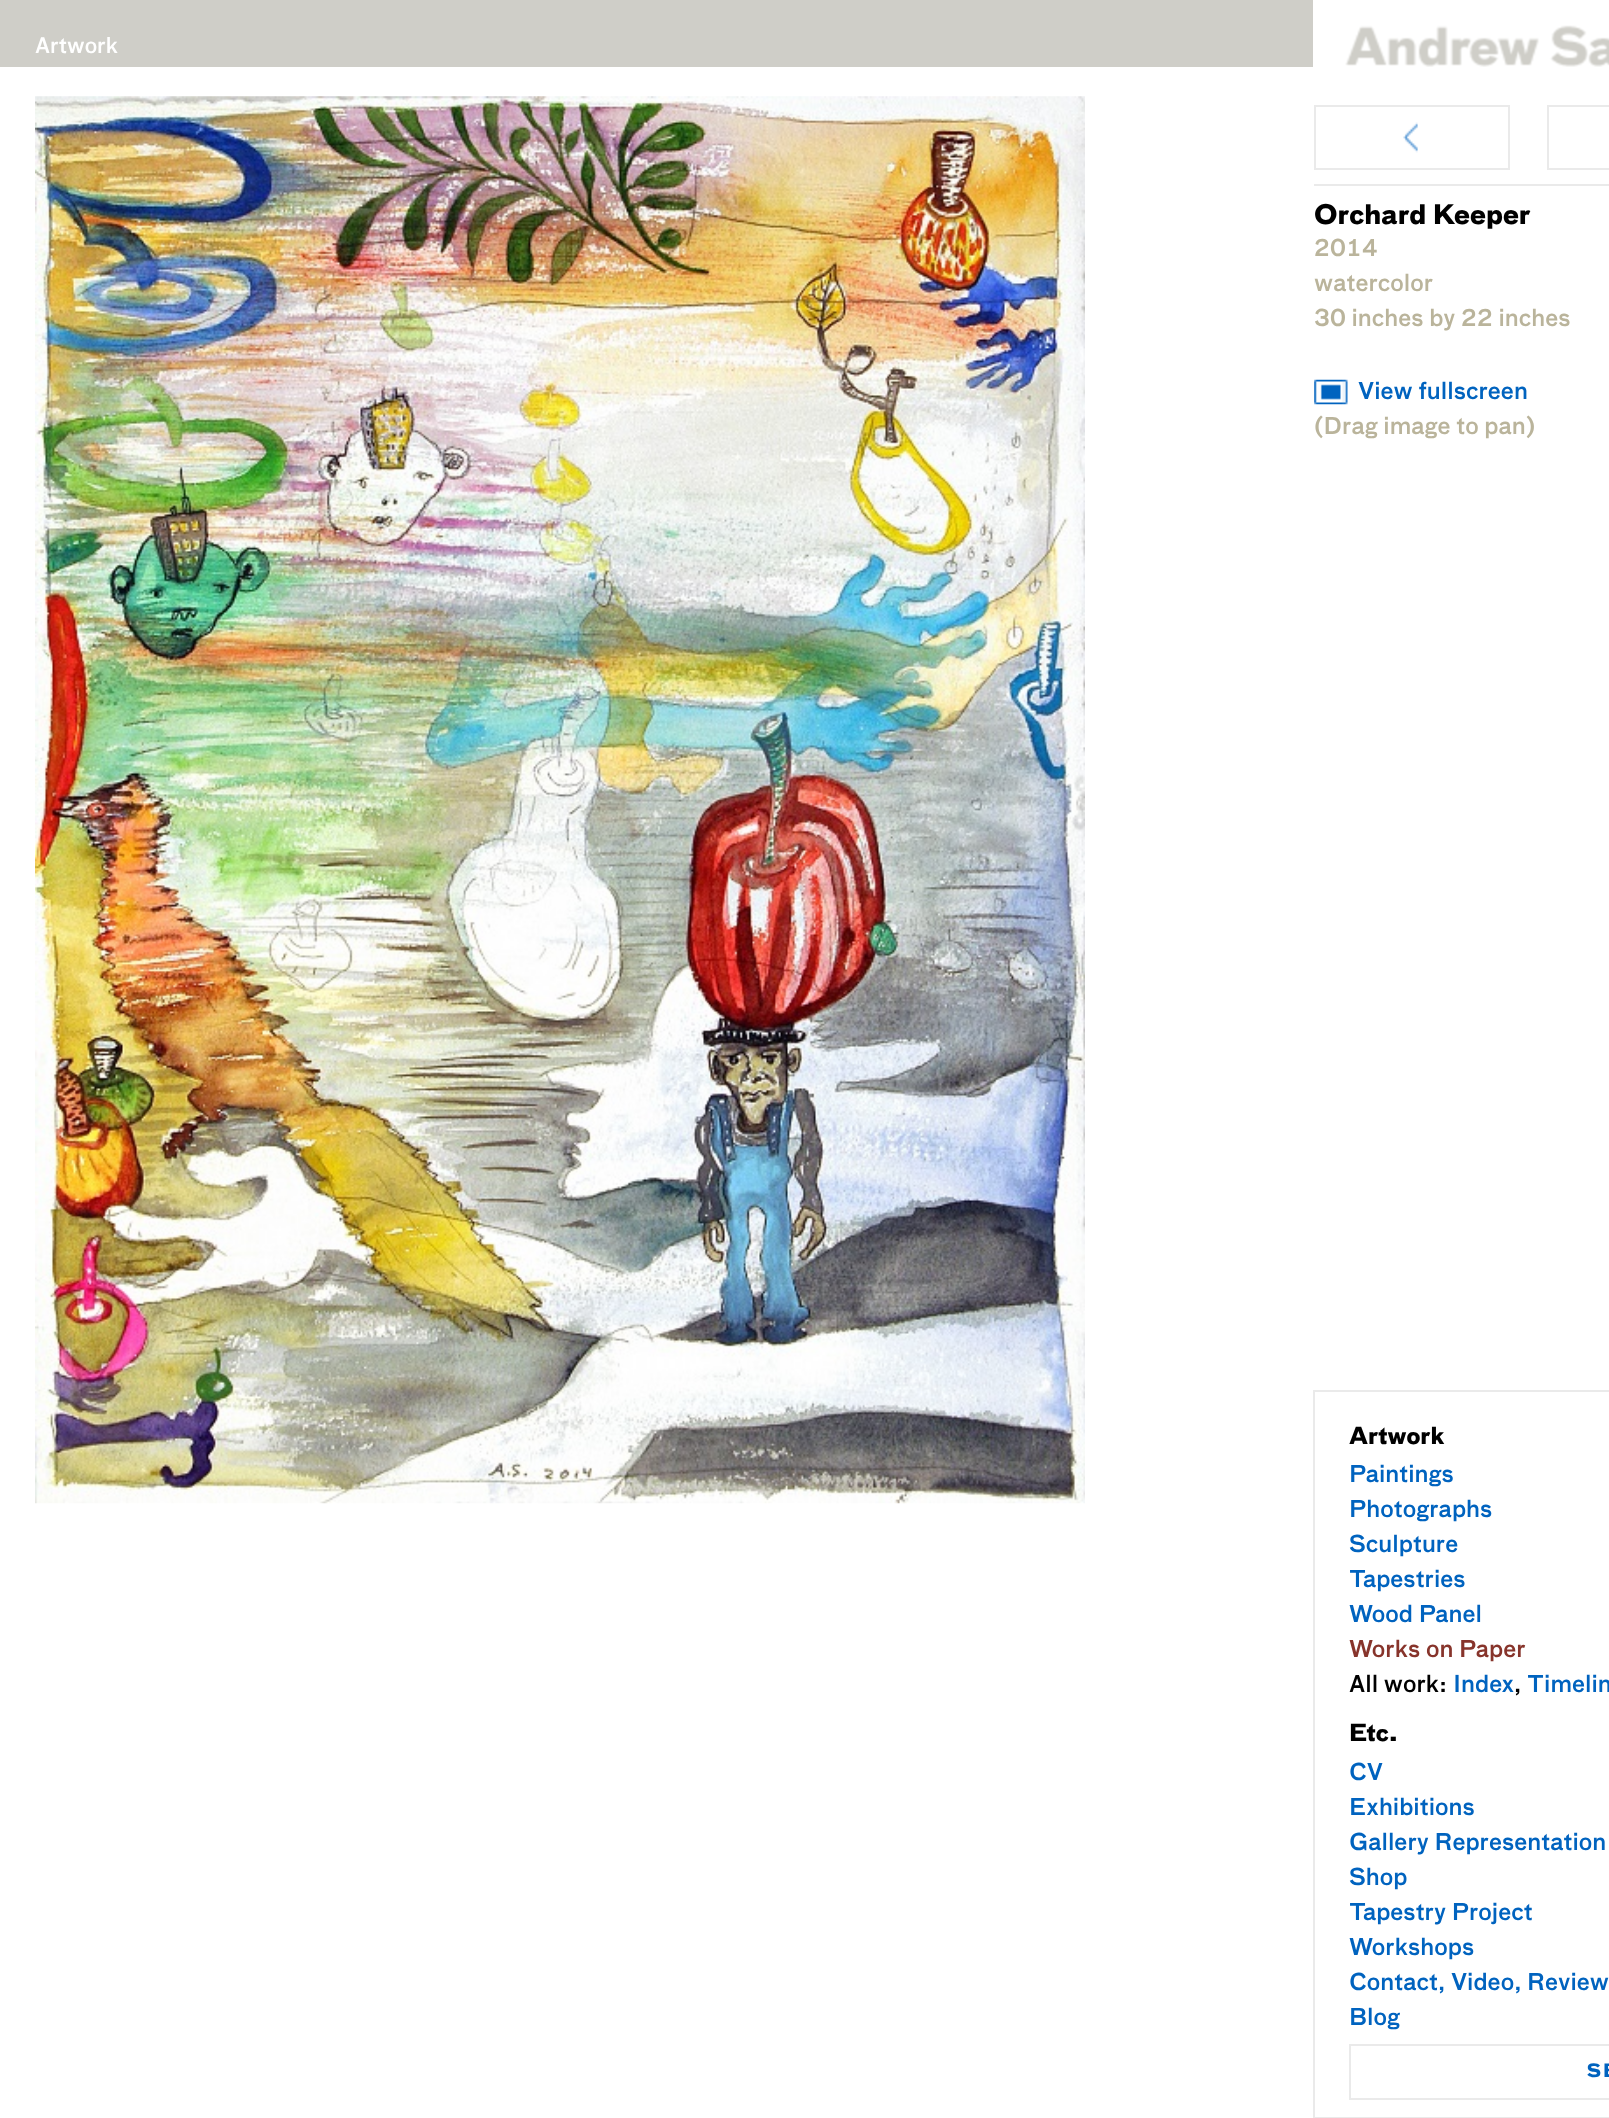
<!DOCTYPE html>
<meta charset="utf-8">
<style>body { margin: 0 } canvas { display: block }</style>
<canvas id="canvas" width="1609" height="2118"></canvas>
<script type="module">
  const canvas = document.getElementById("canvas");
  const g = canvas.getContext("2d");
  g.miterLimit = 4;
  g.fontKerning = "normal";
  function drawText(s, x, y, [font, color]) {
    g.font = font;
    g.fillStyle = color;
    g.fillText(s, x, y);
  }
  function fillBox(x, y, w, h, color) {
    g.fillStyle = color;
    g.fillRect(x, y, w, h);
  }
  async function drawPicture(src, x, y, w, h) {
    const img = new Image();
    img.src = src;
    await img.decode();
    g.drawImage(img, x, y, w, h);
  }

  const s1 = ["500 21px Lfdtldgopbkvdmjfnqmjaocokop", "#FFFFFF"];
  const s2 = ["bold 26.25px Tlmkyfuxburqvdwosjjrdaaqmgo", "#000000"];
  const s3 = ["500 22.75px Lfdtldgopbkvdmjfnqmjaocokop", "#BAB49B"];
  const s4 = ["500 22.75px Lfdtldgopbkvdmjfnqmjaocokop", "#0063BF"];
  const s5 = ["bold 22.75px Tlmkyfuxburqvdwosjjrdaaqmgo", "#000000"];
  const s6 = ["500 22.75px Lfdtldgopbkvdmjfnqmjaocokop", "#87342B"];
  const s7 = ["500 22.75px Lfdtldgopbkvdmjfnqmjaocokop", "#000000"];
  const s8 = ["bold 18px Tlmkyfuxburqvdwosjjrdaaqmgo", "#0063BF"];

  fillBox(0, 0, 1609, 2118, "#FFFFFF");
  fillBox(0, 0, 1609, 67, "#CFCEC8");
  drawText("Artwork", 35, 53, s1);
  await drawPicture("pic1.png", 35, 96, 1050, 1408);
  await drawPicture("pic2.png", 1403, 122, 15, 31);
  g.strokeStyle = "#EAEAEA";
  g.lineWidth = 2;
  g.strokeRect(1315, 106, 194, 63);
  g.strokeRect(1548, 106, 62, 63);
  fillBox(1314, 184, 295, 2, "#EAEAEA");
  drawText("Orchard Keeper", 1314, 224, s2);
  drawText("2014", 1314, 256, s3);
  drawText("watercolor", 1314, 291, s3);
  drawText("30 inches by 22 inches", 1314, 326, s3);
  await drawPicture("pic3.png", 1314, 379, 34, 26);
  drawText("View fullscreen", 1358, 399, s4);
  drawText("(Drag image to pan)", 1314, 434, s3);
  await drawPicture("pic4.png", 1313, 0, 296, 67);
  g.strokeRect(1314, 1391, 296, 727);
  drawText("Artwork", 1349, 1444, s5);
  drawText("Paintings", 1349, 1482, s4);
  drawText("Photographs", 1349, 1517, s4);
  drawText("Sculpture", 1349, 1552, s4);
  drawText("Tapestries", 1349, 1587, s4);
  drawText("Wood Panel", 1349, 1622, s4);
  drawText("Works on Paper", 1349, 1657, s6);
  drawText("All work:", 1349, 1692, s7);
  drawText("Index", 1453, 1692, s4);
  drawText(",", 1514, 1692, s7);
  drawText("Timelin", 1527, 1692, s4);
  drawText("Etc.", 1349, 1741, s5);
  drawText("CV", 1349, 1780, s4);
  drawText("Exhibitions", 1349, 1815, s4);
  drawText("Gallery Representation", 1349, 1850, s4);
  drawText("Shop", 1349, 1885, s4);
  drawText("Tapestry Project", 1349, 1920, s4);
  drawText("Workshops", 1349, 1955, s4);
  drawText("Contact, Video, Review", 1349, 1990, s4);
  drawText("Blog", 1349, 2025, s4);
  g.strokeRect(1350, 2045, 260, 54);
  g.letterSpacing = "2px";
  drawText("SE", 1587, 2077, s8);
</script>
